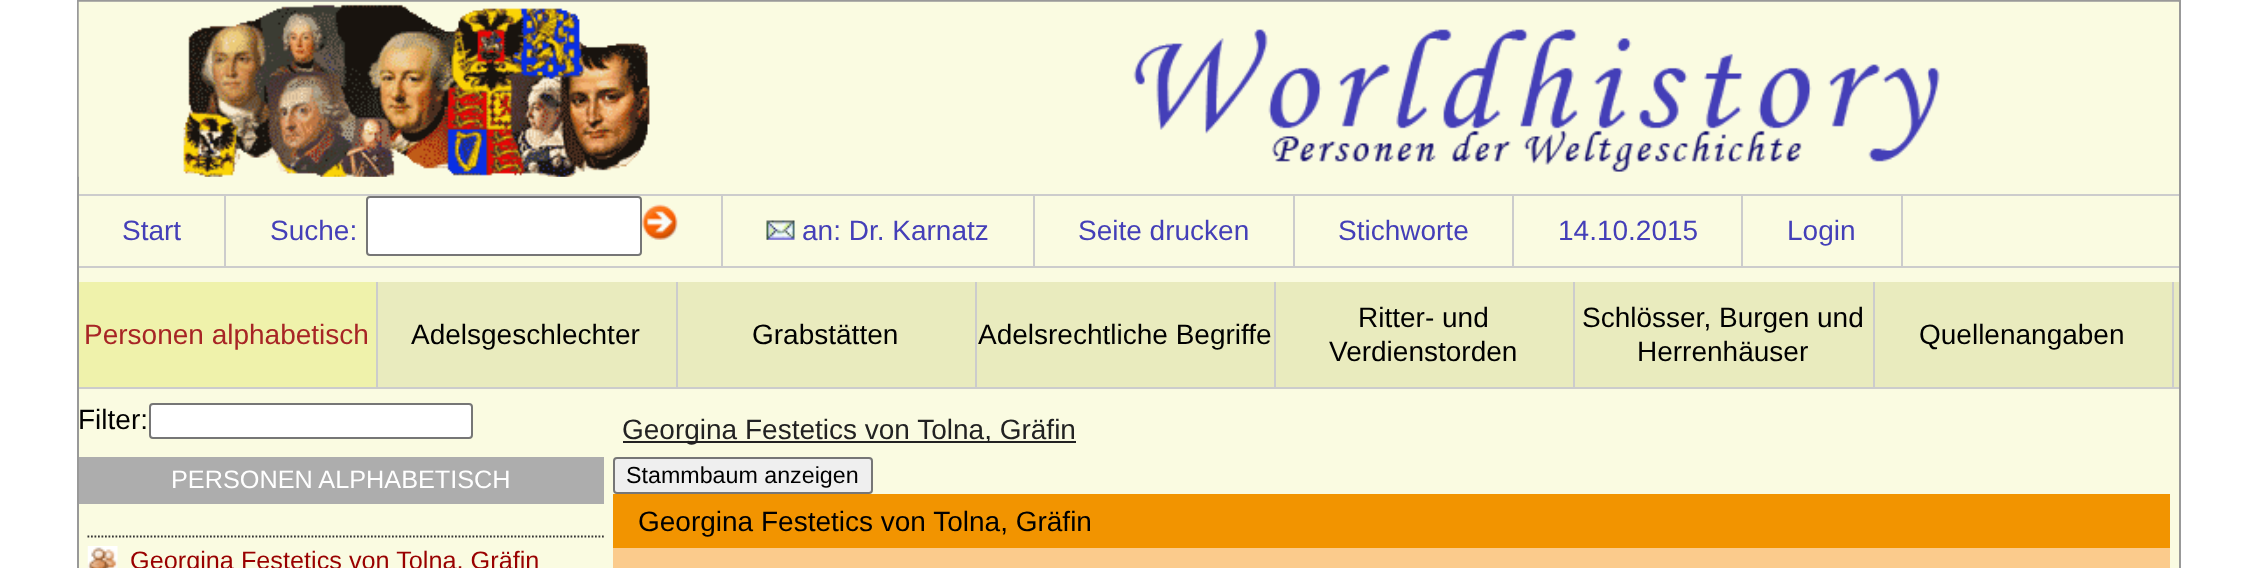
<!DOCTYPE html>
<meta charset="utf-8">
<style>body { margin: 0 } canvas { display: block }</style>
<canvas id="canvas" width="2255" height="568"></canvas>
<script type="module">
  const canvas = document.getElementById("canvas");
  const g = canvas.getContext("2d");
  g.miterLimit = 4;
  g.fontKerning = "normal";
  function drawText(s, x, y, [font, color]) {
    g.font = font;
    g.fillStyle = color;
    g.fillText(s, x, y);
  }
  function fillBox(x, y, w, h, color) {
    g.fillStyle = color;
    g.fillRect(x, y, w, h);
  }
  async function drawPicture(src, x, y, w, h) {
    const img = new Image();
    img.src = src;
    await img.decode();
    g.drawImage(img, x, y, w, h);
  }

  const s1 = ["28px Liberation Sans", "#443FB8"];
  const s2 = ["28px Liberation Sans", "#A72525"];
  const s3 = ["28px Liberation Sans", "#000000"];
  const s4 = ["25.25px Liberation Sans", "#FFFFFF"];
  const s5 = ["25.25px Liberation Sans", "#990000"];
  const s6 = ["28px Liberation Sans", "#222222"];
  const s7 = ["23.25px Liberation Sans", "#000000"];

  fillBox(0, 0, 2255, 568, "#FFFFFF");
  g.fillStyle = "#FAFBE1";
  g.beginPath();
  g.rect(78, 1, 2102, 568);
  g.fill();
  g.strokeStyle = "#999999";
  g.lineWidth = 2;
  g.stroke();
  await drawPicture("pic1.png", 78, 1, 2101, 176);
  fillBox(79, 194, 2100, 2, "#CCCCCC");
  fillBox(79, 266, 2100, 2, "#CCCCCC");
  fillBox(224, 196, 2, 70, "#CCCCCC");
  drawText("Start", 122, 240, s1);
  fillBox(721, 196, 2, 70, "#CCCCCC");
  drawText("Suche:", 270, 240, s1);
  g.fillStyle = "#FFFFFF";
  g.beginPath();
  g.roundRect(367, 197, 274, 58, 3);
  g.fill();
  g.strokeStyle = "#767676";
  g.stroke();
  await drawPicture("pic2.png", 642, 204, 36, 36);
  fillBox(1033, 196, 2, 70, "#CCCCCC");
  await drawPicture("pic3.png", 766, 220, 29, 20);
  drawText("an: Dr. Karnatz", 802, 240, s1);
  fillBox(1293, 196, 2, 70, "#CCCCCC");
  drawText("Seite drucken", 1078, 240, s1);
  fillBox(1512, 196, 2, 70, "#CCCCCC");
  drawText("Stichworte", 1338, 240, s1);
  fillBox(1741, 196, 2, 70, "#CCCCCC");
  drawText("14.10.2015", 1558, 240, s1);
  fillBox(1901, 196, 2, 70, "#CCCCCC");
  drawText("Login", 1787, 240, s1);
  fillBox(378, 282, 1801, 105, "#E9EBBE");
  fillBox(79, 387, 2100, 2, "#CCCCCC");
  fillBox(376, 282, 2, 105, "#CCCCCC");
  fillBox(79, 282, 297, 105, "#EFF2AB");
  drawText("Personen alphabetisch", 84, 344, s2);
  fillBox(676, 282, 2, 105, "#CCCCCC");
  drawText("Adelsgeschlechter", 411, 344, s3);
  fillBox(975, 282, 2, 105, "#CCCCCC");
  drawText("Grabstätten", 752, 344, s3);
  fillBox(1274, 282, 2, 105, "#CCCCCC");
  drawText("Adelsrechtliche Begriffe", 978, 344, s3);
  fillBox(1573, 282, 2, 105, "#CCCCCC");
  drawText("Ritter- und", 1358, 327, s3);
  drawText("Verdienstorden", 1329, 361, s3);
  fillBox(1873, 282, 2, 105, "#CCCCCC");
  drawText("Schlösser, Burgen und", 1582, 327, s3);
  drawText("Herrenhäuser", 1637, 361, s3);
  fillBox(2172, 282, 2, 105, "#CCCCCC");
  drawText("Quellenangaben", 1919, 344, s3);
  drawText("Filter:", 78, 429, s3);
  g.fillStyle = "#FFFFFF";
  g.beginPath();
  g.roundRect(150, 404, 322, 34, 3);
  g.fill();
  g.stroke();
  fillBox(79, 457, 525, 47, "#ADADAD");
  drawText("PERSONEN ALPHABETISCH", 171, 488, s4);
  await drawPicture("pic4.png", 87, 546, 31, 22);
  g.beginPath();
  g.moveTo(87.5, 536.5);
  g.lineTo(604, 536.5);
  g.strokeStyle = "#333333";
  g.lineWidth = 1.8;
  g.setLineDash([1.75, 1.75]);
  g.stroke();
  drawText("Georgina Festetics von Tolna, Gräfin", 130, 569, s5);
  fillBox(623, 441, 453, 2, "#222222");
  drawText("Georgina Festetics von Tolna, Gräfin", 622, 439, s6);
  g.fillStyle = "#EFEFEF";
  g.beginPath();
  g.roundRect(614, 458, 258, 35, 3);
  g.fill();
  g.strokeStyle = "#767676";
  g.lineWidth = 2;
  g.setLineDash([]);
  g.stroke();
  drawText("Stammbaum anzeigen", 626, 483, s7);
  fillBox(613, 494, 1557, 54, "#F29400");
  drawText("Georgina Festetics von Tolna, Gräfin", 638, 531, s3);
  fillBox(613, 548, 1557, 20, "#FBCB8C");
</script>
